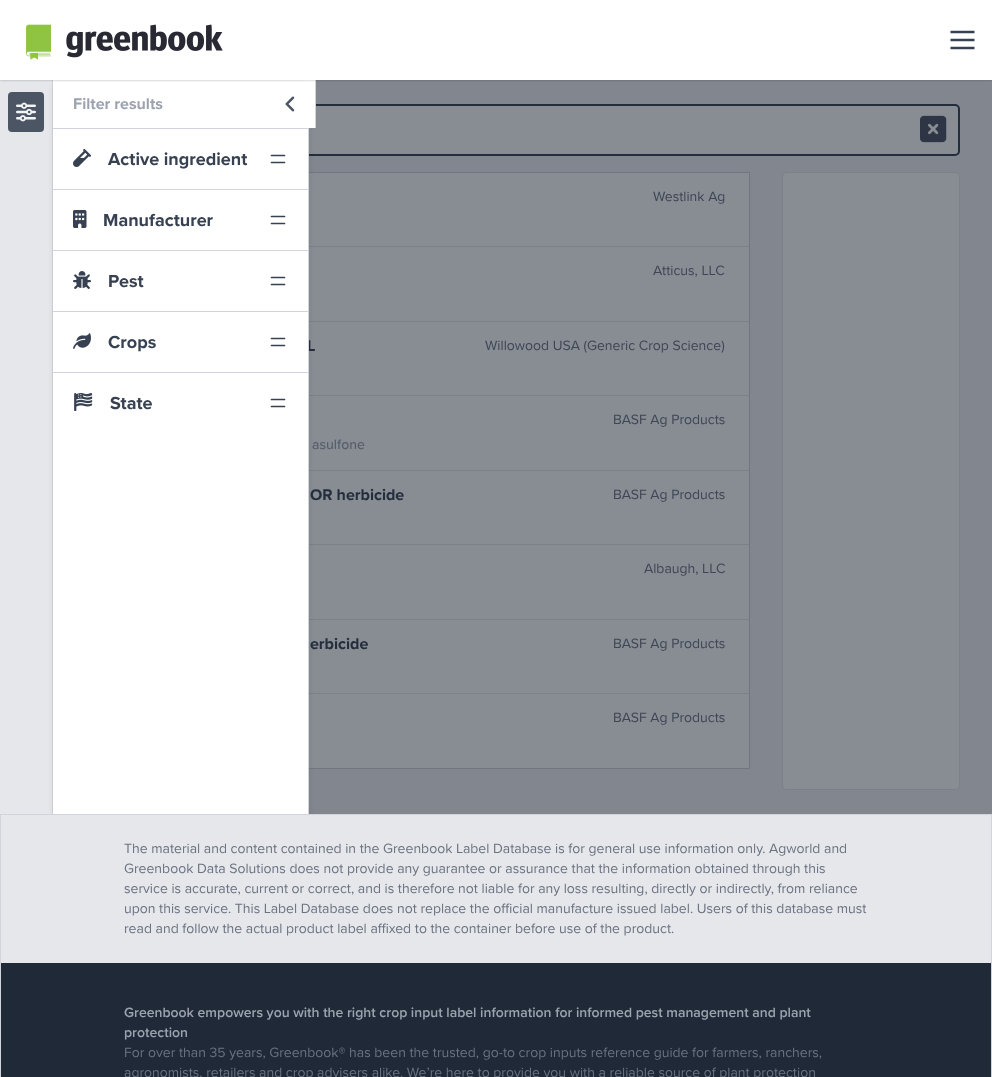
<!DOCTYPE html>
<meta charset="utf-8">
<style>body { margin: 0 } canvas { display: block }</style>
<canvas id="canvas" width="992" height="1077"></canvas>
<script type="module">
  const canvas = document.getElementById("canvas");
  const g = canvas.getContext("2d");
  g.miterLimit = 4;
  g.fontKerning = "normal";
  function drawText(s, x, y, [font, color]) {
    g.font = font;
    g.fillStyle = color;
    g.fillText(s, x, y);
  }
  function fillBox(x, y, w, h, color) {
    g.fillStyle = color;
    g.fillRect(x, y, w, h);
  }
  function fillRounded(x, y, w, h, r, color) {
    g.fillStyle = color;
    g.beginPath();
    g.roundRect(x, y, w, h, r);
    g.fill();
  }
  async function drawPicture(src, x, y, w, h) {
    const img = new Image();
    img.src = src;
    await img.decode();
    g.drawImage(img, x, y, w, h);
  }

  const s1 = ["bold 16px Proxima Nova", "#242D3C"];
  const s2 = ["bold 16px Proxima Nova", "#9CA3AF"];
  const s3 = ["bold 18px Proxima Nova", "#374151"];
  const s4 = ["14px Proxima Nova", "#3E4554"];
  const s5 = ["500 14px Proxima Nova", "#575E6B"];
  const s6 = ["14px Proxima Nova", "#6B7280"];
  const s7 = ["600 14px Proxima Nova", "#9CA3AF"];

  fillBox(0, 0, 992, 1077, "#FFFFFF");
  fillBox(309, 80, 683, 734, "#82868F");
  fillBox(0, 80, 52, 734, "#E5E7EB");
  fillBox(52, 80, 1, 734, "#D1D5DB");
  g.fillStyle = "#888C93";
  g.beginPath();
  g.roundRect(86, 105, 873, 50, 4);
  g.fill();
  g.strokeStyle = "#242D3C";
  g.lineWidth = 2;
  g.stroke();
  fillBox(309, 173, 440, 595, "#888C93");
  g.strokeStyle = "#717781";
  g.lineWidth = 1;
  g.strokeRect(85.5, 172.5, 664, 596);
  fillBox(309, 246, 440, 1, "#7B8089");
  fillBox(309, 321, 440, 1, "#7B8089");
  fillBox(309, 395, 440, 1, "#7B8089");
  fillBox(309, 470, 440, 1, "#7B8089");
  fillBox(309, 544, 440, 1, "#7B8089");
  fillBox(309, 619, 440, 1, "#7B8089");
  fillBox(309, 693, 440, 1, "#7B8089");
  g.fillStyle = "rgba(0, 0, 0, 0.1)";
  g.filter = "blur(3px)";
  g.beginPath();
  g.rect(54, 85, 254, 732);
  g.fill();
  g.filter = "none";
  fillBox(53, 81, 255, 733, "#FFFFFF");
  fillBox(308, 80, 7, 48, "#FFFFFF");
  fillBox(315, 80, 1, 48, "#D1D5DB");
  g.save();
  g.beginPath();
  g.rect(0, 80, 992, 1);
  g.clip();
  g.fillStyle = "rgba(0, 0, 0, 0.06)";
  g.filter = "blur(1px)";
  g.beginPath();
  g.rect(0, 1, 992, 80);
  g.fill();
  g.filter = "none";
  g.restore();
  g.save();
  g.beginPath();
  g.rect(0, 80, 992, 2);
  g.clip();
  g.fillStyle = "rgba(0, 0, 0, 0.1)";
  g.filter = "blur(1.5px)";
  g.beginPath();
  g.rect(0, 1, 992, 80);
  g.fill();
  g.filter = "none";
  g.restore();
  await drawPicture("pic1.png", 26, 24, 197, 36);
  g.beginPath();
  g.moveTo(950.5, 32);
  g.lineTo(974.5, 32);
  g.moveTo(950.5, 40);
  g.lineTo(974.5, 40);
  g.moveTo(950.5, 48);
  g.lineTo(974.5, 48);
  g.strokeStyle = "#374151";
  g.lineWidth = 2.7;
  g.stroke();
  fillRounded(8, 92, 36, 40, 4, "#4B5563");
  await drawPicture("pic2.png", 16, 102, 20, 20);
  drawText("L", 307, 351, s1);
  fillBox(308, 128, 1, 686, "#D1D5DB");
  drawText("Filter results", 73, 109, s2);
  await drawPicture("pic3.png", 285, 96, 10, 16);
  fillBox(53, 128, 255, 1, "#D1D5DB");
  await drawPicture("pic4.png", 73, 149, 18, 18);
  drawText("Active ingredient", 108, 165, s3);
  g.beginPath();
  g.moveTo(271.5, 155.5);
  g.lineTo(284.5, 155.5);
  g.moveTo(271.5, 162.5);
  g.lineTo(284.5, 162.5);
  g.lineWidth = 1.7;
  g.lineCap = "round";
  g.lineJoin = "round";
  g.stroke();
  fillBox(53, 189, 255, 1, "#D1D5DB");
  await drawPicture("pic5.png", 73, 210, 14, 18);
  drawText("Manufacturer", 103, 226, s3);
  g.beginPath();
  g.moveTo(271.5, 216.5);
  g.lineTo(284.5, 216.5);
  g.moveTo(271.5, 223.5);
  g.lineTo(284.5, 223.5);
  g.stroke();
  fillBox(53, 250, 255, 1, "#D1D5DB");
  await drawPicture("pic6.png", 73, 271, 18, 18);
  drawText("Pest", 108, 287, s3);
  g.beginPath();
  g.moveTo(271.5, 277.5);
  g.lineTo(284.5, 277.5);
  g.moveTo(271.5, 284.5);
  g.lineTo(284.5, 284.5);
  g.stroke();
  fillBox(53, 311, 255, 1, "#D1D5DB");
  await drawPicture("pic7.png", 73, 333, 18, 16);
  drawText("Crops", 108, 348, s3);
  g.beginPath();
  g.moveTo(271.5, 338.5);
  g.lineTo(284.5, 338.5);
  g.moveTo(271.5, 345.5);
  g.lineTo(284.5, 345.5);
  g.stroke();
  fillBox(53, 372, 255, 1, "#D1D5DB");
  await drawPicture("pic8.png", 74, 393, 19, 18);
  drawText("State", 110, 409, s3);
  g.beginPath();
  g.moveTo(271.5, 399.5);
  g.lineTo(284.5, 399.5);
  g.moveTo(271.5, 406.5);
  g.lineTo(284.5, 406.5);
  g.stroke();
  await drawPicture("pic9.png", 920, 115, 27, 28);
  drawText("Westlink Ag", 653, 201, s4);
  drawText("Atticus, LLC", 653, 275, s4);
  drawText("Willowood USA (Generic Crop Science)", 485, 350, s4);
  drawText("BASF Ag Products", 613, 424, s4);
  drawText("asulfone", 312, 449, s5);
  drawText("OR herbicide", 310, 500, s1);
  drawText("BASF Ag Products", 613, 499, s4);
  drawText("Albaugh, LLC", 644, 573, s4);
  drawText("erbicide", 310, 649, s1);
  drawText("BASF Ag Products", 613, 648, s4);
  drawText("BASF Ag Products", 613, 722, s4);
  g.fillStyle = "#888C93";
  g.beginPath();
  g.roundRect(782.5, 172.5, 177, 617, 3.5);
  g.fill();
  g.strokeStyle = "#7B8089";
  g.lineWidth = 1;
  g.lineJoin = "miter";
  g.stroke();
  fillBox(1, 815, 990, 148, "#E5E7EB");
  g.strokeStyle = "#D1D5DB";
  g.strokeRect(0.5, 814.5, 991, 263);
  drawText("The material and content contained in the Greenbook Label Database is for general use information only. Agworld and", 124, 853, s6);
  drawText("Greenbook Data Solutions does not provide any guarantee or assurance that the information obtained through this", 124, 873, s6);
  drawText("service is accurate, current or correct, and is therefore not liable for any loss resulting, directly or indirectly, from reliance", 124, 893, s6);
  drawText("upon this service. This Label Database does not replace the official manufacture issued label. Users of this database must", 124, 913, s6);
  drawText("read and follow the actual product label affixed to the container before use of the product.", 124, 933, s6);
  fillBox(1, 963, 990, 114, "#1F2937");
  drawText("Greenbook empowers you with the right crop input label information for informed pest management and plant", 124, 1017, s7);
  drawText("protection", 124, 1037, s7);
  drawText("For over than 35 years, Greenbook® has been the trusted, go-to crop inputs reference guide for farmers, ranchers,", 124, 1057, s6);
  drawText("agronomists, retailers and crop advisers alike. We’re here to provide you with a reliable source of plant protection", 124, 1077, s6);
</script>
